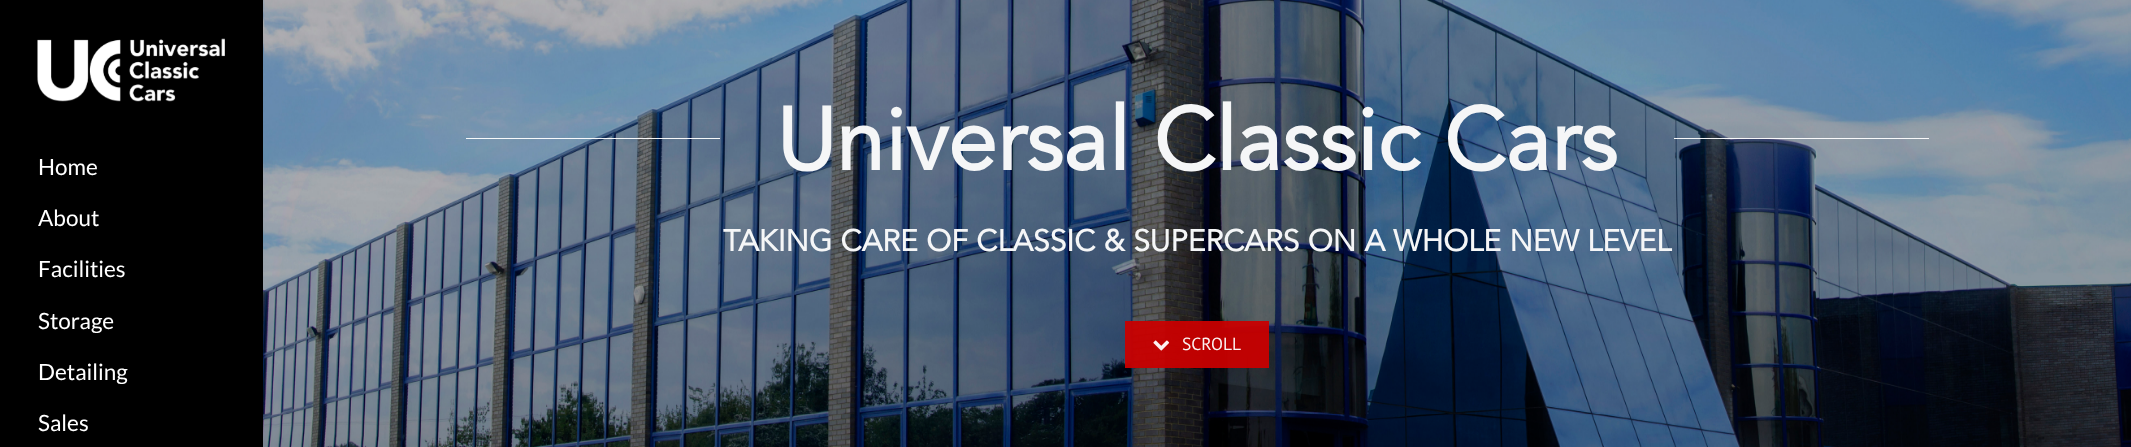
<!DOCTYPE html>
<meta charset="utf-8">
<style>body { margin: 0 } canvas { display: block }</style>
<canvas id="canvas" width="2131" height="447"></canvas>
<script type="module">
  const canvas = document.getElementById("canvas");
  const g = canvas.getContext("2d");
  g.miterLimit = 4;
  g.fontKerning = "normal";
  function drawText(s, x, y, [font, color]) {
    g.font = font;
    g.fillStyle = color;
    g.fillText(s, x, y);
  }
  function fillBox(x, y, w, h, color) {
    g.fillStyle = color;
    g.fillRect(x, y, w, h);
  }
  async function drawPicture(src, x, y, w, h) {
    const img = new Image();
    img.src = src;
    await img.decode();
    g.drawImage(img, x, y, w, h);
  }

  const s1 = ["22.5px Lato", "#FFFFFF"];
  const s2 = ["bold 87.5px Avenir", "#F5F6F7"];
  const s3 = ["bold 30px Avenir", "#F5F6F7"];
  const s4 = ["17.5px PT Sans", "#FBF1F1"];

  fillBox(0, 0, 2131, 447, "#000000");
  await drawPicture("pic1.png", 37, 38, 188, 64);
  drawText("Home", 38, 175, s1);
  drawText("About", 38, 226, s1);
  drawText("Facilities", 38, 277, s1);
  drawText("Storage", 38, 329, s1);
  drawText("Detailing", 38, 380, s1);
  drawText("Sales", 38, 431, s1);
  await drawPicture("pic2.png", 263, 0, 1868, 447);
  fillBox(466, 138, 254, 1, "rgba(255, 255, 255, 0.94)");
  drawText("Universal Classic Cars", 776, 170, s2);
  fillBox(1674, 138, 255, 1, "rgba(255, 255, 255, 0.94)");
  drawText("TAKING CARE OF CLASSIC & SUPERCARS ON A WHOLE NEW LEVEL", 723, 251, s3);
  fillBox(1125, 321, 144, 47, "rgba(202, 0, 0, 0.94)");
  await drawPicture("pic3.png", 1153, 340, 17, 11);
  drawText("SCROLL", 1182, 350, s4);
</script>
